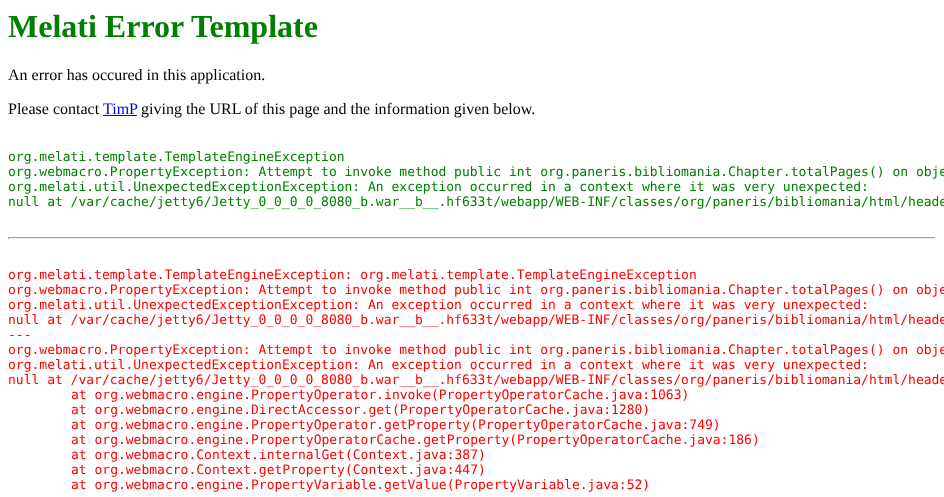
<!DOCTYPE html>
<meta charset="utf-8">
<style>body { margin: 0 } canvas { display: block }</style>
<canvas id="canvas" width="944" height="497"></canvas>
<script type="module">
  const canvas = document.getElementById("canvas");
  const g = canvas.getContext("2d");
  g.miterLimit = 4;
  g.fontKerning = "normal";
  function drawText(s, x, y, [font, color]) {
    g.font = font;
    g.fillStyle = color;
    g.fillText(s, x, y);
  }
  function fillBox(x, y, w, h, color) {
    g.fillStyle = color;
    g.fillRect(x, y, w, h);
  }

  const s1 = ["bold 32px Liberation Serif", "#008000"];
  const s2 = ["16px Liberation Serif", "#000000"];
  const s3 = ["16px Liberation Serif", "#0000EE"];
  const s4 = ["13px DejaVu Sans Mono", "#008000"];
  const s5 = ["13px DejaVu Sans Mono", "#FF0000"];

  fillBox(0, 0, 944, 497, "#FFFFFF");
  drawText("Melati Error Template", 8, 37, s1);
  drawText("An error has occured in this application.", 8, 80, s2);
  drawText("Please contact", 8, 114, s2);
  drawText("TimP", 103, 114, s3);
  fillBox(103, 115, 34, 1, "#0000EE");
  drawText("giving the URL of this page and the information given below.", 141, 114, s2);
  drawText("org.melati.template.TemplateEngineException", 8, 161, s4);
  drawText("org.webmacro.PropertyException: Attempt to invoke method public int org.paneris.bibliomania.Chapter.totalPages() on obje", 8, 176, s4);
  drawText("org.melati.util.UnexpectedExceptionException: An exception occurred in a context where it was very unexpected:", 8, 191, s4);
  drawText("null at /var/cache/jetty6/Jetty_0_0_0_0_8080_b.war__b__.hf633t/webapp/WEB-INF/classes/org/paneris/bibliomania/html/heade", 8, 206, s4);
  fillBox(8, 237, 928, 1, "#9F9F9F");
  fillBox(935, 237, 1, 2, "#EEEEEE");
  fillBox(8, 238, 928, 1, "#EEEEEE");
  fillBox(8, 237, 1, 2, "#9F9F9F");
  drawText("org.melati.template.TemplateEngineException: org.melati.template.TemplateEngineException", 8, 279, s5);
  drawText("org.webmacro.PropertyException: Attempt to invoke method public int org.paneris.bibliomania.Chapter.totalPages() on obje", 8, 294, s5);
  drawText("org.melati.util.UnexpectedExceptionException: An exception occurred in a context where it was very unexpected:", 8, 309, s5);
  drawText("null at /var/cache/jetty6/Jetty_0_0_0_0_8080_b.war__b__.hf633t/webapp/WEB-INF/classes/org/paneris/bibliomania/html/heade", 8, 324, s5);
  drawText("---", 8, 339, s5);
  drawText("org.webmacro.PropertyException: Attempt to invoke method public int org.paneris.bibliomania.Chapter.totalPages() on obje", 8, 354, s5);
  drawText("org.melati.util.UnexpectedExceptionException: An exception occurred in a context where it was very unexpected:", 8, 369, s5);
  drawText("null at /var/cache/jetty6/Jetty_0_0_0_0_8080_b.war__b__.hf633t/webapp/WEB-INF/classes/org/paneris/bibliomania/html/heade", 8, 384, s5);
  drawText("at org.webmacro.engine.PropertyOperator.invoke(PropertyOperatorCache.java:1063)", 71, 399, s5);
  drawText("at org.webmacro.engine.DirectAccessor.get(PropertyOperatorCache.java:1280)", 71, 414, s5);
  drawText("at org.webmacro.engine.PropertyOperator.getProperty(PropertyOperatorCache.java:749)", 71, 429, s5);
  drawText("at org.webmacro.engine.PropertyOperatorCache.getProperty(PropertyOperatorCache.java:186)", 71, 444, s5);
  drawText("at org.webmacro.Context.internalGet(Context.java:387)", 71, 459, s5);
  drawText("at org.webmacro.Context.getProperty(Context.java:447)", 71, 474, s5);
  drawText("at org.webmacro.engine.PropertyVariable.getValue(PropertyVariable.java:52)", 71, 489, s5);
</script>
